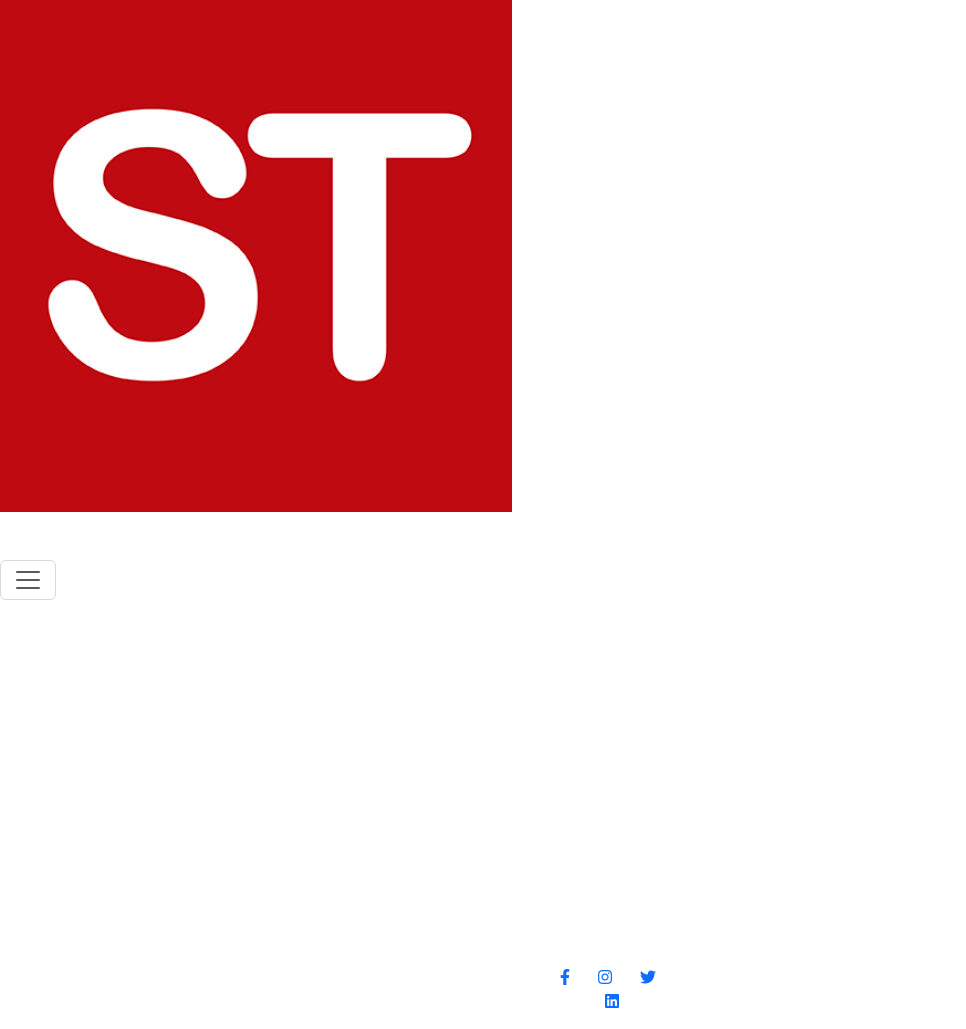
<!DOCTYPE html>
<meta charset="utf-8">
<style>body { margin: 0 } canvas { display: block }</style>
<canvas id="canvas" width="966" height="1029"></canvas>
<script type="module">
  const canvas = document.getElementById("canvas");
  const g = canvas.getContext("2d");
  g.miterLimit = 4;
  g.fontKerning = "normal";
  function fillBox(x, y, w, h, color) {
    g.fillStyle = color;
    g.fillRect(x, y, w, h);
  }
  async function drawPicture(src, x, y, w, h) {
    const img = new Image();
    img.src = src;
    await img.decode();
    g.drawImage(img, x, y, w, h);
  }

  fillBox(0, 0, 966, 1029, "#FFFFFF");
  await drawPicture("pic1.png", 0, 0, 512, 512);
  g.beginPath();
  g.roundRect(0.5, 560.5, 55, 39, 5.5);
  g.strokeStyle = "#D9D9D9";
  g.stroke();
  await drawPicture("pic2.png", 16, 571, 24, 18);
  await drawPicture("pic3.png", 560, 969, 10, 16);
  await drawPicture("pic4.png", 598, 970, 15, 14);
  await drawPicture("pic5.png", 640, 970, 16, 14);
  await drawPicture("pic6.png", 605, 994, 14, 14);
</script>
